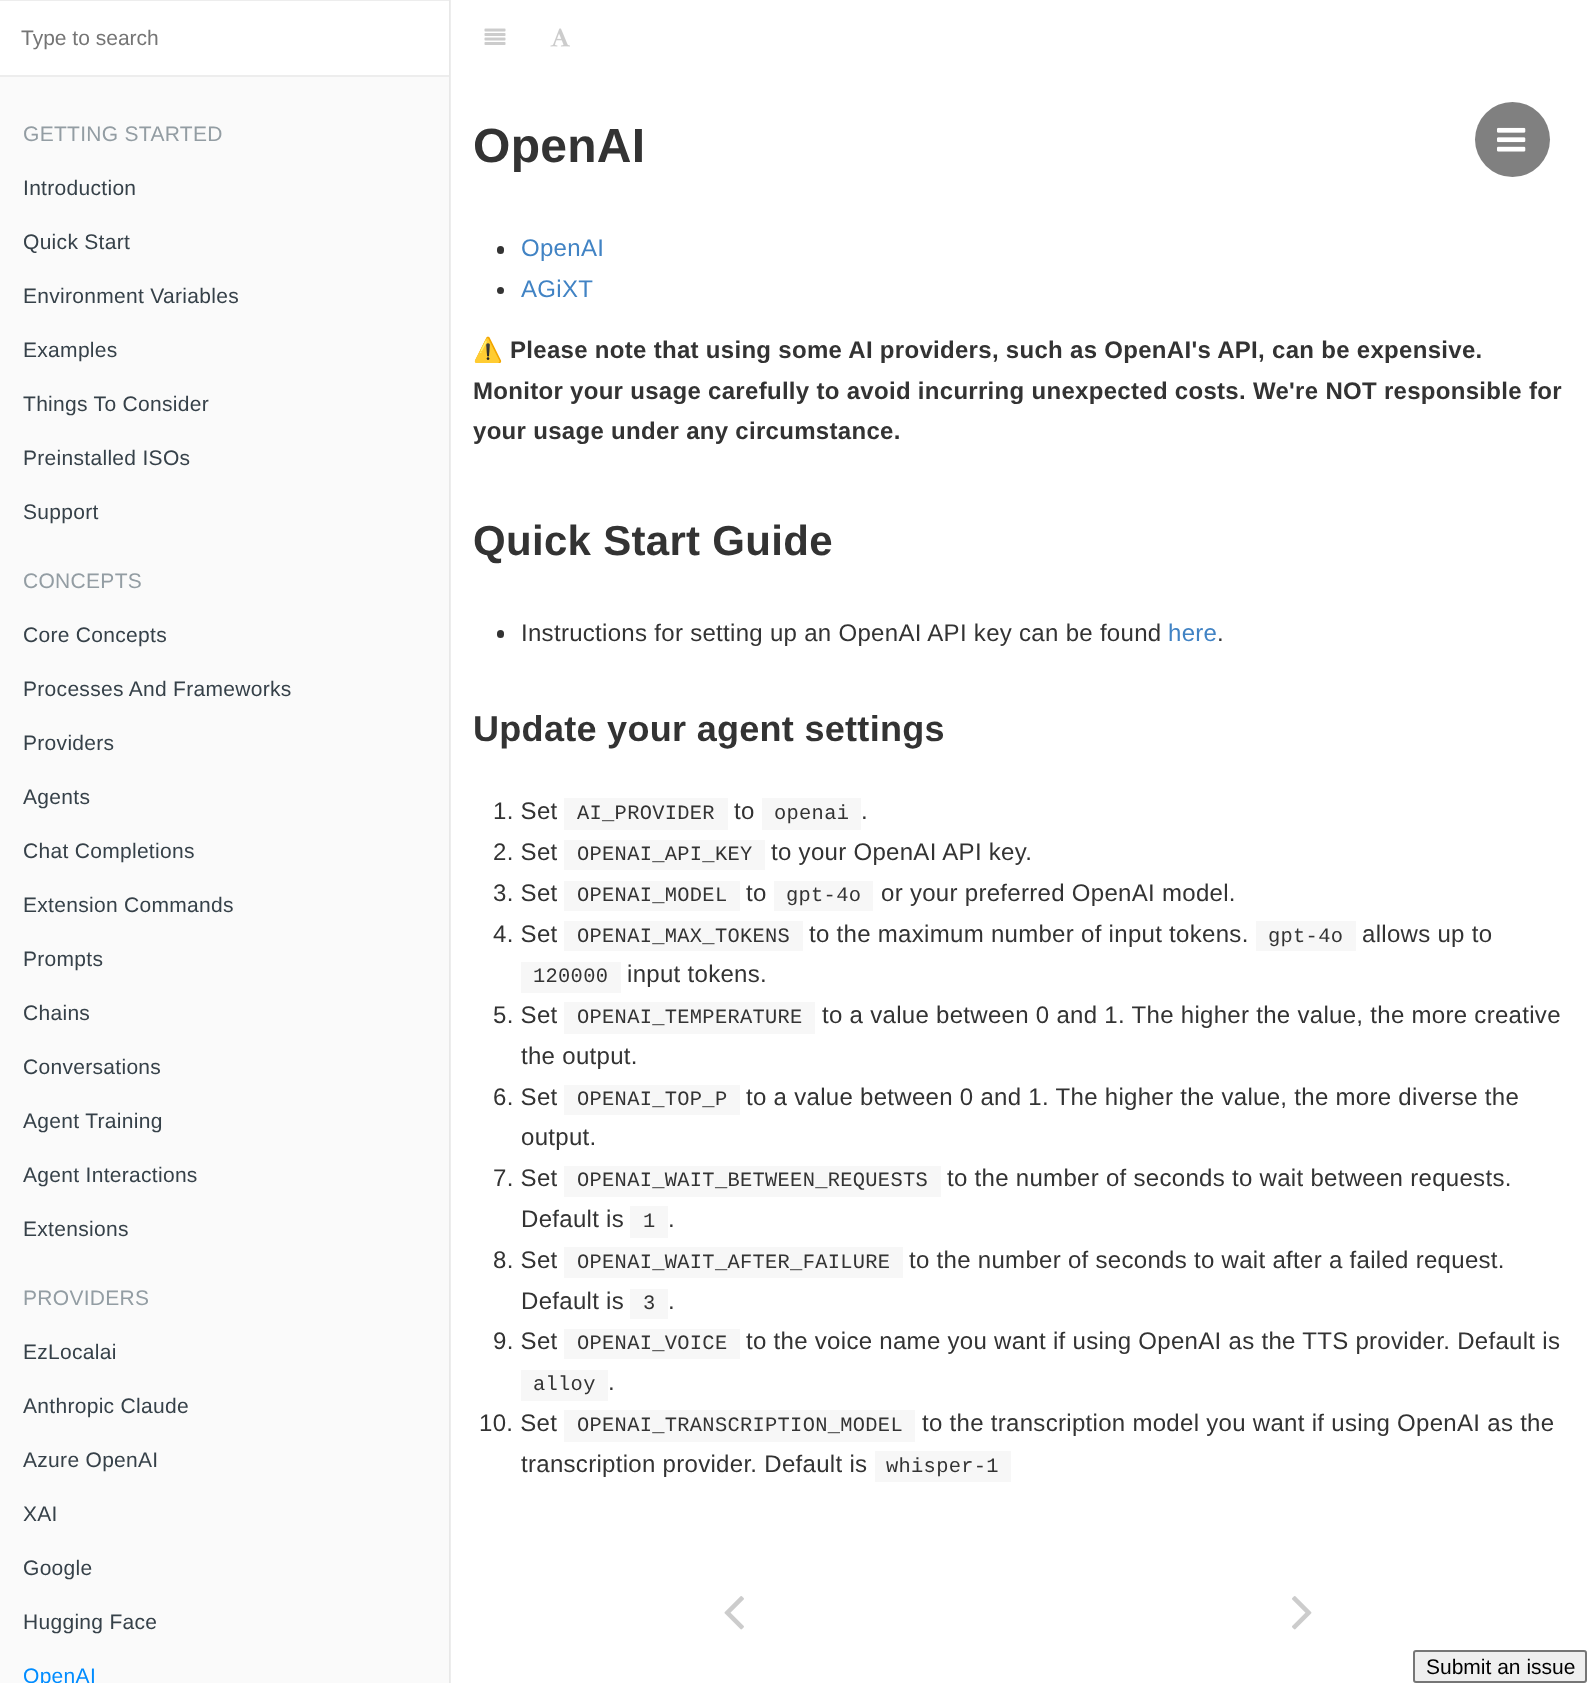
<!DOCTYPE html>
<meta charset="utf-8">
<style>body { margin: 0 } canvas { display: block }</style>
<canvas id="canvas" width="1587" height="1683"></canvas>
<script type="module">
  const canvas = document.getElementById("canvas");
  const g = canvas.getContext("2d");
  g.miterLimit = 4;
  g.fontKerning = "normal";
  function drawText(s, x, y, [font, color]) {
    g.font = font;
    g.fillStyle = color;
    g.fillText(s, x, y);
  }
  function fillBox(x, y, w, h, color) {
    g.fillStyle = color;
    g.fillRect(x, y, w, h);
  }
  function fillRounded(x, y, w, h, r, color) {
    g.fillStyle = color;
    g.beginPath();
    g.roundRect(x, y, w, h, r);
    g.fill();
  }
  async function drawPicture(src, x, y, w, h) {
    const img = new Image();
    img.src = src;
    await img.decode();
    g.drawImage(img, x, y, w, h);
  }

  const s1 = ["21px Liberation Sans", "#757575"];
  const s2 = ["21px Liberation Sans", "#939DA3"];
  const s3 = ["21px Liberation Sans", "#364149"];
  const s4 = ["21px Liberation Sans", "#008CFF"];
  const s5 = ["bold 48px Liberation Sans", "#333333"];
  const s6 = ["24px Liberation Sans", "#4183C4"];
  const s7 = ["24px Noto Color Emoji", "#333333"];
  const s8 = ["bold 24px Liberation Sans", "#333333"];
  const s9 = ["bold 42px Liberation Sans", "#333333"];
  const s10 = ["24px Liberation Sans", "#333333"];
  const s11 = ["bold 36px Liberation Sans", "#333333"];
  const s12 = ["20.4px Liberation Mono", "#333333"];
  const s13 = ["21px Liberation Sans", "#000000"];

  fillBox(0, 0, 1587, 1683, "#FFFFFF");
  fillBox(450, 0, 1, 1683, "#EDEDED");
  fillBox(0, 77, 449, 1606, "#FAFAFA");
  fillBox(449, 0, 1, 1683, "#E8E8E8");
  fillBox(0, 0, 449, 1, "#EDEDED");
  fillBox(0, 75, 449, 2, "#EDEDED");
  drawText("Type to search", 21, 45, s1);
  g.letterSpacing = "0.3px";
  drawText("GETTING STARTED", 23, 141, s2);
  drawText("Introduction", 23, 195, s3);
  drawText("Quick Start", 23, 249, s3);
  drawText("Environment Variables", 23, 303, s3);
  drawText("Examples", 23, 357, s3);
  drawText("Things To Consider", 23, 411, s3);
  drawText("Preinstalled ISOs", 23, 465, s3);
  drawText("Support", 23, 519, s3);
  drawText("CONCEPTS", 23, 588, s2);
  drawText("Core Concepts", 23, 642, s3);
  drawText("Processes And Frameworks", 23, 696, s3);
  drawText("Providers", 23, 750, s3);
  drawText("Agents", 23, 804, s3);
  drawText("Chat Completions", 23, 858, s3);
  drawText("Extension Commands", 23, 912, s3);
  drawText("Prompts", 23, 966, s3);
  drawText("Chains", 23, 1020, s3);
  drawText("Conversations", 23, 1074, s3);
  drawText("Agent Training", 23, 1128, s3);
  drawText("Agent Interactions", 23, 1182, s3);
  drawText("Extensions", 23, 1236, s3);
  drawText("PROVIDERS", 23, 1305, s2);
  drawText("EzLocalai", 23, 1359, s3);
  drawText("Anthropic Claude", 23, 1413, s3);
  drawText("Azure OpenAI", 23, 1467, s3);
  drawText("XAI", 23, 1521, s3);
  drawText("Google", 23, 1575, s3);
  drawText("Hugging Face", 23, 1629, s3);
  drawText("OpenAI", 23, 1683, s4);
  g.fillStyle = "#808080";
  g.beginPath();
  g.arc(1512.5, 139.5, 37.5, 0, Math.PI * 2);
  g.fill();
  await drawPicture("pic1.png", 1497, 127, 29, 25);
  await drawPicture("pic2.png", 484, 28, 22, 17);
  await drawPicture("pic3.png", 550, 28, 20, 19);
  drawText("OpenAI", 473, 162, s5);
  fillRounded(497, 246, 7, 8, 3.5, "#333333");
  drawText("OpenAI", 521, 256, s6);
  g.fillStyle = "#333333";
  g.beginPath();
  g.arc(500.5, 290.5, 3.5, 0, Math.PI * 2);
  g.fill();
  drawText("AGiXT", 521, 297, s6);
  g.save();
  g.beginPath();
  g.rect(473, 105, 1092, 1379);
  g.clip();
  drawText("⚠️", 473, 358, s7);
  g.restore();
  drawText("Please note that using some AI providers, such as OpenAI's API, can be expensive.", 510, 358, s8);
  drawText("Monitor your usage carefully to avoid incurring unexpected costs. We're NOT responsible for", 473, 399, s8);
  drawText("your usage under any circumstance.", 473, 439, s8);
  drawText("Quick Start Guide", 473, 555, s9);
  fillRounded(497, 630, 7, 8, 3.5, "#333333");
  drawText("Instructions for setting up an OpenAI API key can be found", 521, 641, s10);
  drawText("here", 1168, 641, s6);
  drawText(".", 1217, 641, s10);
  drawText("Update your agent settings", 473, 741, s11);
  drawText("1. Set", 493, 819, s10);
  fillBox(564, 798, 164, 32, "#F7F7F7");
  drawText("AI_PROVIDER", 577, 819, s12);
  drawText("to", 734, 819, s10);
  fillBox(762, 798, 99, 32, "#F7F7F7");
  drawText("openai", 774, 819, s12);
  drawText(".", 861, 819, s10);
  drawText("2. Set", 493, 860, s10);
  fillBox(564, 840, 201, 30, "#F7F7F7");
  drawText("OPENAI_API_KEY", 577, 860, s12);
  drawText("to your OpenAI API key.", 771, 860, s10);
  drawText("3. Set", 493, 901, s10);
  fillBox(564, 881, 176, 30, "#F7F7F7");
  drawText("OPENAI_MODEL", 577, 901, s12);
  drawText("to", 746, 901, s10);
  fillBox(774, 881, 99, 30, "#F7F7F7");
  drawText("gpt-4o", 786, 901, s12);
  drawText("or your preferred OpenAI model.", 881, 901, s10);
  drawText("4. Set", 493, 942, s10);
  fillBox(564, 921, 239, 30, "#F7F7F7");
  drawText("OPENAI_MAX_TOKENS", 577, 942, s12);
  drawText("to the maximum number of input tokens.", 809, 942, s10);
  fillBox(1256, 921, 100, 30, "#F7F7F7");
  drawText("gpt-4o", 1268, 942, s12);
  drawText("allows up to", 1362, 942, s10);
  fillBox(521, 962, 100, 31, "#F7F7F7");
  drawText("120000", 533, 982, s12);
  drawText("input tokens.", 627, 982, s10);
  drawText("5. Set", 493, 1023, s10);
  fillBox(564, 1002, 251, 32, "#F7F7F7");
  drawText("OPENAI_TEMPERATURE", 577, 1023, s12);
  drawText("to a value between 0 and 1. The higher the value, the more creative", 822, 1023, s10);
  drawText("the output.", 521, 1064, s10);
  drawText("6. Set", 493, 1105, s10);
  fillBox(564, 1085, 176, 30, "#F7F7F7");
  drawText("OPENAI_TOP_P", 577, 1105, s12);
  drawText("to a value between 0 and 1. The higher the value, the more diverse the", 746, 1105, s10);
  drawText("output.", 521, 1145, s10);
  drawText("7. Set", 493, 1186, s10);
  fillBox(564, 1166, 377, 31, "#F7F7F7");
  drawText("OPENAI_WAIT_BETWEEN_REQUESTS", 577, 1186, s12);
  drawText("to the number of seconds to wait between requests.", 947, 1186, s10);
  drawText("Default is", 521, 1227, s10);
  fillBox(630, 1206, 38, 32, "#F7F7F7");
  drawText("1", 643, 1227, s12);
  drawText(".", 668, 1227, s10);
  drawText("8. Set", 493, 1268, s10);
  fillBox(564, 1247, 339, 31, "#F7F7F7");
  drawText("OPENAI_WAIT_AFTER_FAILURE", 577, 1268, s12);
  drawText("to the number of seconds to wait after a failed request.", 909, 1268, s10);
  drawText("Default is", 521, 1309, s10);
  fillBox(630, 1289, 38, 30, "#F7F7F7");
  drawText("3", 643, 1309, s12);
  drawText(".", 668, 1309, s10);
  drawText("9. Set", 493, 1349, s10);
  fillBox(564, 1329, 176, 30, "#F7F7F7");
  drawText("OPENAI_VOICE", 577, 1349, s12);
  drawText("to the voice name you want if using OpenAI as the TTS provider. Default is", 746, 1349, s10);
  fillBox(521, 1370, 87, 31, "#F7F7F7");
  drawText("alloy", 533, 1390, s12);
  drawText(".", 608, 1390, s10);
  drawText("10. Set", 479, 1431, s10);
  fillBox(564, 1410, 351, 32, "#F7F7F7");
  drawText("OPENAI_TRANSCRIPTION_MODEL", 577, 1431, s12);
  drawText("to the transcription model you want if using OpenAI as the", 922, 1431, s10);
  drawText("transcription provider. Default is", 521, 1472, s10);
  fillBox(875, 1451, 136, 31, "#F7F7F7");
  drawText("whisper-1", 886, 1472, s12);
  await drawPicture("pic4.png", 724, 1596, 20, 34);
  await drawPicture("pic5.png", 1292, 1596, 20, 34);
  g.fillStyle = "#EFEFEF";
  g.beginPath();
  g.roundRect(1414, 1651, 172, 31, 2);
  g.fill();
  g.strokeStyle = "#767676";
  g.lineWidth = 2;
  g.stroke();
  g.letterSpacing = "0px";
  drawText("Submit an issue", 1426, 1674, s13);
</script>
